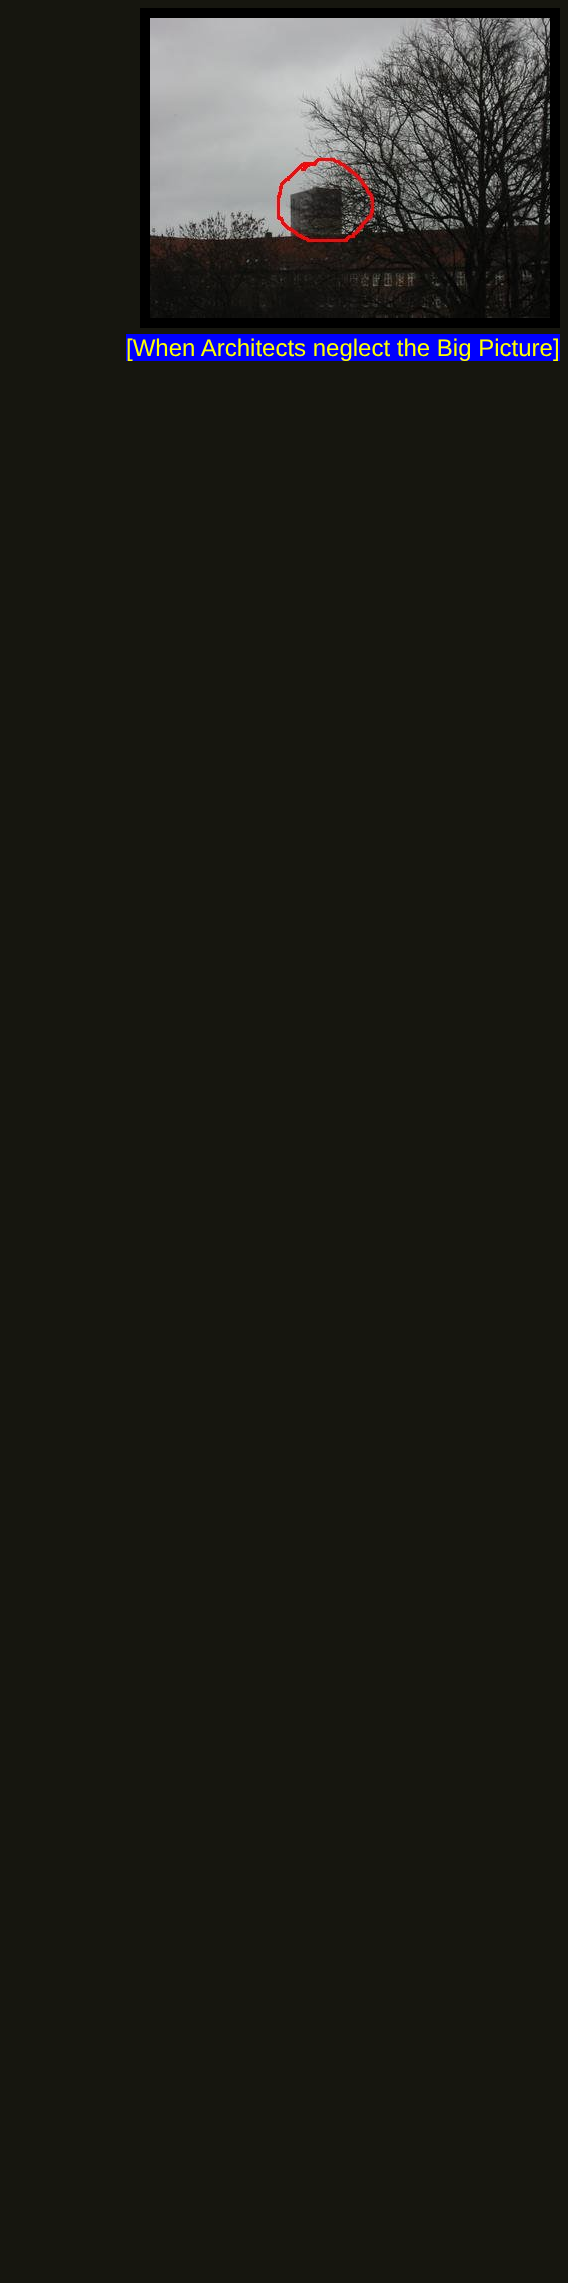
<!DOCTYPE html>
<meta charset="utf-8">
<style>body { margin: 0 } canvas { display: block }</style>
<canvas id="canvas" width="568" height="2283"></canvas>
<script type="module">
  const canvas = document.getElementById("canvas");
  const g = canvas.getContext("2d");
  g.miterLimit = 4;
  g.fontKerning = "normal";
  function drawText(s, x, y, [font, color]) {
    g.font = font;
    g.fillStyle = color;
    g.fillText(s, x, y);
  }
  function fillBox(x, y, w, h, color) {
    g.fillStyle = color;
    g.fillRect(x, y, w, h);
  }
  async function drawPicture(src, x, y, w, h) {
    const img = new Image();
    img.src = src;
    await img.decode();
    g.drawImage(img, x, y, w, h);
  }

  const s1 = ["24px Liberation Sans", "#FFFF00"];

  fillBox(0, 0, 568, 2283, "#16160F");
  g.strokeStyle = "#000000";
  g.lineWidth = 10;
  g.strokeRect(145, 13, 410, 310);
  await drawPicture("pic1.png", 150, 18, 400, 300);
  fillBox(126, 334, 434, 27, "#0000FF");
  drawText("[When Architects neglect the Big Picture]", 126, 356, s1);
</script>
